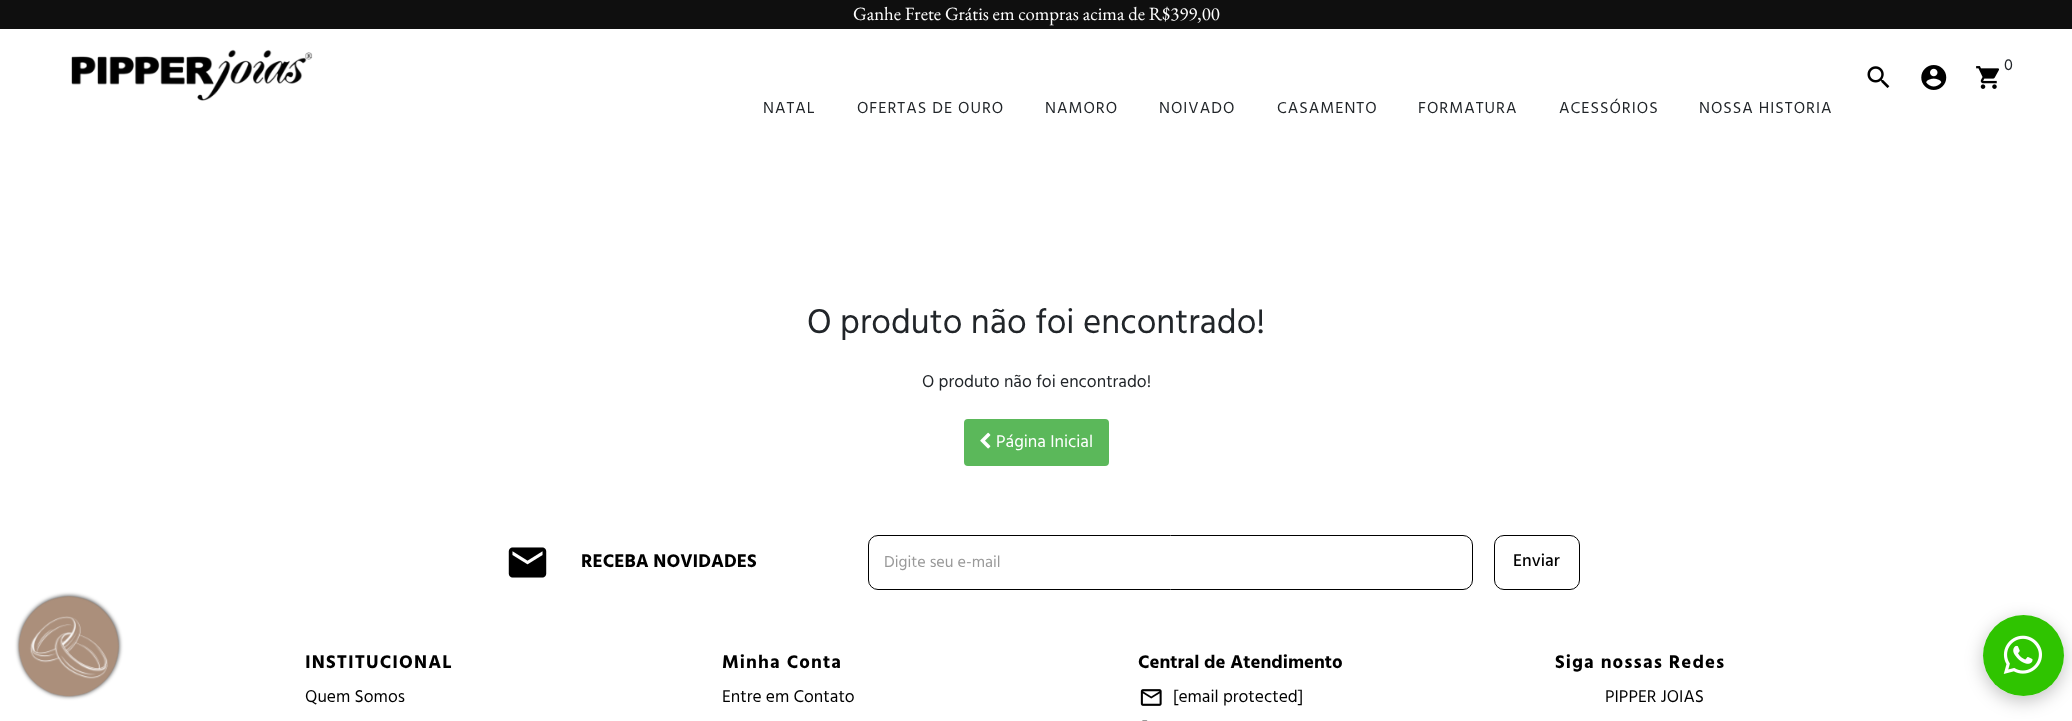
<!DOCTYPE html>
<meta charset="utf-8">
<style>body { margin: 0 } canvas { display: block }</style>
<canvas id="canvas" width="2072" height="721"></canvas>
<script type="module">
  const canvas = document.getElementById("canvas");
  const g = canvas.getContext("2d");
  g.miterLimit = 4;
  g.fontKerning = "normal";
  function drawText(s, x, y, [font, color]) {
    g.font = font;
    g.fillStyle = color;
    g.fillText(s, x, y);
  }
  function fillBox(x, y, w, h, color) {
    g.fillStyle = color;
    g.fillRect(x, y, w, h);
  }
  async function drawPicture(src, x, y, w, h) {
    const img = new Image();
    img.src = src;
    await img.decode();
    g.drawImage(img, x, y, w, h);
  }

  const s1 = ["18.75px EB Garamond", "#FFFFFF"];
  const s2 = ["16.25px Hind", "#212529"];
  const s3 = ["35px Hind", "#212529"];
  const s4 = ["17.5px Hind", "#212529"];
  const s5 = ["17.5px Hind", "#FFFFFF"];
  const s6 = ["bold 18.75px Hind", "#000000"];
  const s7 = ["16.25px Hind", "#999999"];
  const s8 = ["500 17.5px Hind", "#000000"];
  const s9 = ["17.5px Hind", "#000000"];

  fillBox(0, 0, 2072, 721, "#FFFFFF");
  fillBox(0, 0, 2072, 29, "#0F0F0F");
  drawText("Ganhe Frete Grátis em compras acima de R$399,00", 853, 20, s1);
  await drawPicture("pic1.png", 71, 49, 242, 52);
  await drawPicture("pic2.png", 1867, 66, 23, 22);
  await drawPicture("pic3.png", 1921, 65, 26, 25);
  await drawPicture("pic4.png", 1976, 66, 23, 23);
  drawText("0", 2004, 70, s2);
  g.letterSpacing = "1px";
  drawText("NATAL", 763, 113, s2);
  drawText("OFERTAS DE OURO", 857, 113, s2);
  drawText("NAMORO", 1045, 113, s2);
  drawText("NOIVADO", 1159, 113, s2);
  drawText("CASAMENTO", 1277, 113, s2);
  drawText("FORMATURA", 1418, 113, s2);
  drawText("ACESSÓRIOS", 1559, 113, s2);
  drawText("NOSSA HISTORIA", 1699, 113, s2);
  g.letterSpacing = "0px";
  drawText("O produto não foi encontrado!", 807, 333, s3);
  drawText("O produto não foi encontrado!", 922, 387, s4);
  g.fillStyle = "#5BB85A";
  g.beginPath();
  g.roundRect(965.5, 420.5, 142, 44, 2.5);
  g.fill();
  g.strokeStyle = "#5BB85A";
  g.lineWidth = 3;
  g.stroke();
  await drawPicture("pic5.png", 980, 432, 11, 17);
  drawText("Página Inicial", 996, 447, s5);
  await drawPicture("pic6.png", 508, 547, 39, 31);
  drawText("RECEBA NOVIDADES", 581, 567, s6);
  g.beginPath();
  g.roundRect(868.5, 535.5, 604, 54, 9.5);
  g.strokeStyle = "#000000";
  g.lineWidth = 1;
  g.stroke();
  drawText("Digite seu e-mail", 884, 567, s7);
  g.beginPath();
  g.roundRect(1494.5, 535.5, 85, 54, 9.5);
  g.stroke();
  drawText("Enviar", 1513, 566, s8);
  g.fillStyle = "rgba(0, 0, 0, 0.75)";
  g.filter = "blur(2px)";
  g.beginPath();
  g.roundRect(19, 596, 100, 100, 50);
  g.fill();
  g.filter = "none";
  await drawPicture("pic7.png", 18, 596, 101, 101);
  g.letterSpacing = "1.1px";
  drawText("INSTITUCIONAL", 305, 668, s6);
  g.letterSpacing = "0px";
  drawText("Quem Somos", 305, 702, s9);
  g.letterSpacing = "1.1px";
  drawText("Minha Conta", 722, 668, s6);
  g.letterSpacing = "0px";
  drawText("Entre em Contato", 722, 702, s9);
  drawText("Central de Atendimento", 1138, 668, s6);
  await drawPicture("pic8.png", 1140, 689, 22, 17);
  drawText("[email protected]", 1173, 702, s9);
  await drawPicture("pic9.png", 1142, 720, 6, 1);
  g.letterSpacing = "1.1px";
  drawText("Siga nossas Redes", 1555, 668, s6);
  g.letterSpacing = "0px";
  drawText("PIPPER JOIAS", 1605, 702, s9);
  g.fillStyle = "#2FC400";
  g.beginPath();
  g.arc(2023.5, 655.5, 40.5, 0, Math.PI * 2);
  g.fill();
  g.save();
  g.beginPath();
  g.moveTo(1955, 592);
  g.lineTo(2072, 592);
  g.lineTo(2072, 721);
  g.lineTo(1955, 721);
  g.closePath();
  g.moveTo(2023.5, 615);
  g.bezierCurveTo(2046, 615, 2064, 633, 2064, 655.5);
  g.bezierCurveTo(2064, 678, 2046, 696, 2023.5, 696);
  g.bezierCurveTo(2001, 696, 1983, 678, 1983, 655.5);
  g.bezierCurveTo(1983, 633, 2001, 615, 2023.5, 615);
  g.closePath();
  g.clip("evenodd");
  g.fillStyle = "rgba(0, 0, 0, 0.24)";
  g.filter = "blur(9px)";
  g.beginPath();
  g.roundRect(1983, 620, 81, 81, 40.5);
  g.fill();
  g.filter = "none";
  g.restore();
  await drawPicture("pic10.png", 2003, 635, 39, 39);
</script>
